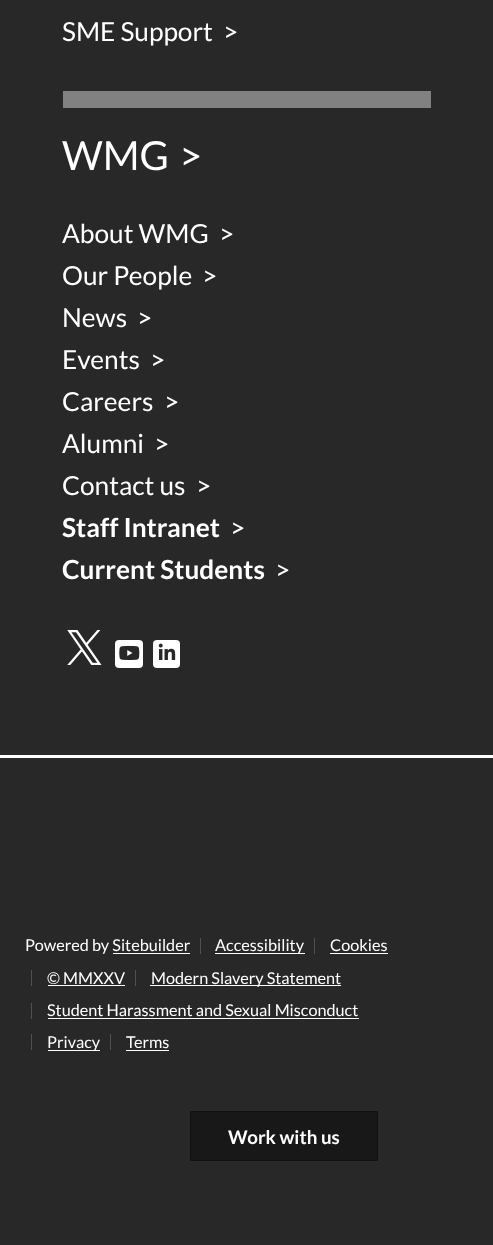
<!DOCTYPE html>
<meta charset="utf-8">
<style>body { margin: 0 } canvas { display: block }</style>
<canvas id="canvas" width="493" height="1245"></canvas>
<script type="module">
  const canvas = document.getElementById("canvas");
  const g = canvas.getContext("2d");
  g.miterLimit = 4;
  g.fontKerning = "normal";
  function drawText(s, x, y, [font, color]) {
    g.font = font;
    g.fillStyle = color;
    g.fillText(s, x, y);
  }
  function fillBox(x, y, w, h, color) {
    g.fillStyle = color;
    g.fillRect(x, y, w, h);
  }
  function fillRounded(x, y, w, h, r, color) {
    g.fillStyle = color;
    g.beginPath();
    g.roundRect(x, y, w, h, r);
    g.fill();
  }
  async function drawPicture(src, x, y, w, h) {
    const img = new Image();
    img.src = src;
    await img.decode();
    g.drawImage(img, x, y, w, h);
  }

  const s1 = ["26.25px Lato", "#FFFFFF"];
  const s2 = ["40px Lato", "#FFFFFF"];
  const s3 = ["bold 26.25px Lato", "#FFFFFF"];
  const s4 = ["16.25px Lato", "#FFFFFF"];
  const s5 = ["bold 18.75px Lato", "#FFFFFF"];

  fillBox(0, 0, 493, 1245, "#282828");
  drawText("SME Support", 62, 41, s1);
  drawText(">", 223, 41, s1);
  fillBox(63, 91, 368, 17, "#818181");
  drawText("WMG", 62, 170, s2);
  drawText(">", 179, 170, s2);
  drawText("About WMG", 62, 243, s1);
  drawText(">", 219, 243, s1);
  drawText("Our People", 62, 285, s1);
  drawText(">", 202, 285, s1);
  drawText("News", 62, 327, s1);
  drawText(">", 137, 327, s1);
  drawText("Events", 62, 369, s1);
  drawText(">", 150, 369, s1);
  drawText("Careers", 62, 411, s1);
  drawText(">", 164, 411, s1);
  drawText("Alumni", 62, 453, s1);
  drawText(">", 154, 453, s1);
  drawText("Contact us", 62, 495, s1);
  drawText(">", 196, 495, s1);
  drawText("Staff Intranet", 62, 537, s3);
  drawText(">", 230, 537, s1);
  drawText("Current Students", 62, 579, s3);
  drawText(">", 275, 579, s1);
  await drawPicture("pic1.png", 67, 630, 35, 35);
  fillRounded(115, 640, 28, 28, 4, "#FFFFFF");
  await drawPicture("pic2.png", 119, 645, 21, 15);
  fillRounded(153, 640, 27, 28, 4, "#FFFFFF");
  await drawPicture("pic3.png", 158, 643, 18, 17);
  fillBox(0, 755, 493, 3, "#FFFFFF");
  drawText("Powered by Sitebuilder", 25, 951, s4);
  fillBox(113, 953, 77, 1, "#FFFFFF");
  fillBox(200, 938, 1, 16, "#505050");
  fillBox(215, 953, 90, 1, "#FFFFFF");
  drawText("Accessibility", 215, 951, s4);
  fillBox(314, 938, 1, 16, "#505050");
  drawText("Cookies", 330, 951, s4);
  fillBox(330, 953, 58, 1, "#FFFFFF");
  fillBox(31, 970, 1, 16, "#505050");
  drawText("© MMXXV", 47, 984, s4);
  fillBox(48, 985, 77, 1, "#FFFFFF");
  fillBox(135, 970, 1, 16, "#505050");
  fillBox(150, 985, 191, 1, "#FFFFFF");
  drawText("Modern Slavery Statement", 151, 984, s4);
  fillBox(31, 1003, 1, 16, "#505050");
  drawText("Student Harassment and Sexual Misconduct", 47, 1016, s4);
  fillBox(48, 1018, 311, 1, "#FFFFFF");
  fillBox(31, 1034, 1, 16, "#505050");
  fillBox(48, 1050, 52, 1, "#FFFFFF");
  drawText("Privacy", 47, 1048, s4);
  fillBox(110, 1034, 1, 16, "#505050");
  drawText("Terms", 126, 1048, s4);
  fillBox(126, 1050, 43, 1, "#FFFFFF");
  g.fillStyle = "#181818";
  g.beginPath();
  g.rect(190.5, 1111.5, 187, 49);
  g.fill();
  g.strokeStyle = "#111111";
  g.stroke();
  drawText("Work with us", 228, 1144, s5);
</script>
